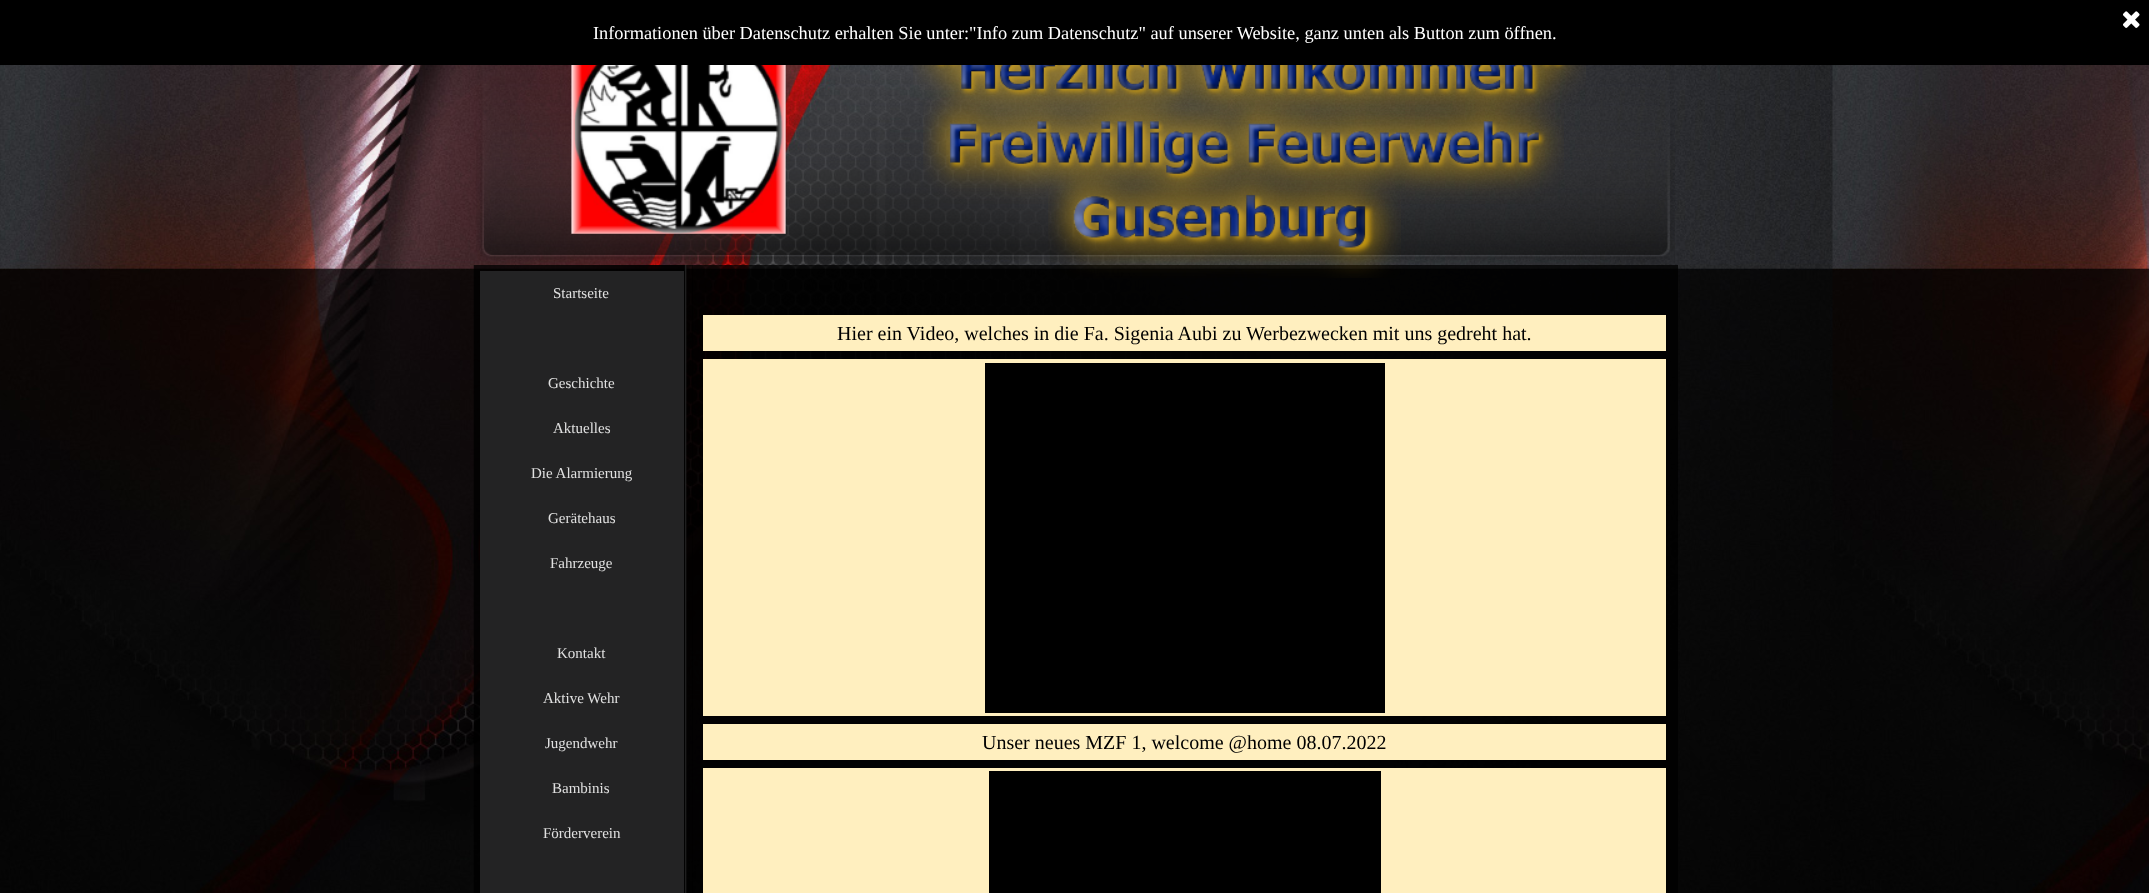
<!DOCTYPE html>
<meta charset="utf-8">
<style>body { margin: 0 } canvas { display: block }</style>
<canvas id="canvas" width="2149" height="893"></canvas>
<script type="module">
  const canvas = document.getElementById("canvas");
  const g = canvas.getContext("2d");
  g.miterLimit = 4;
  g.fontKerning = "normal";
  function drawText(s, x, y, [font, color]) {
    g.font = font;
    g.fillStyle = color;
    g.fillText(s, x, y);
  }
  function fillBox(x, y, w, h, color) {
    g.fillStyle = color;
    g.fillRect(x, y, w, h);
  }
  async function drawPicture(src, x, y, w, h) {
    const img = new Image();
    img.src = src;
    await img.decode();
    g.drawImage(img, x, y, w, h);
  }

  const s1 = ["18.33px Liberation Serif", "#FFFFFF"];
  const s2 = ["15px Liberation Serif", "#E0E0E0"];
  const s3 = ["20px Liberation Serif", "#000000"];

  fillBox(0, 0, 2149, 893, "#FFFFFF");
  fillBox(0, 0, 2149, 65, "#000000");
  await drawPicture("pic1.png", 2123, 11, 17, 17);
  drawText("Informationen über Datenschutz erhalten Sie unter:\"Info zum Datenschutz\" auf unserer Website, ganz unten als Button zum öffnen.", 593, 39, s1);
  await drawPicture("pic2.png", 0, 65, 2149, 828);
  await drawPicture("pic3.png", 476, 65, 1199, 200);
  await drawPicture("pic4.png", 571, 65, 215, 169);
  await drawPicture("pic6.png", 923, 92, 641, 112);
  await drawPicture("pic5.png", 913, 65, 673, 57);
  fillBox(692, 265, 986, 628, "rgba(0, 0, 0, 0.76)");
  await drawPicture("pic7.png", 1048, 167, 353, 111);
  await drawPicture("pic8.png", 473, 265, 220, 628);
  fillBox(480, 271, 204, 622, "#232324");
  drawText("Startseite", 553, 298, s2);
  drawText("Geschichte", 548, 388, s2);
  drawText("Aktuelles", 553, 433, s2);
  drawText("Die Alarmierung", 531, 478, s2);
  drawText("Gerätehaus", 548, 523, s2);
  drawText("Fahrzeuge", 550, 568, s2);
  drawText("Kontakt", 557, 658, s2);
  drawText("Aktive Wehr", 543, 703, s2);
  drawText("Jugendwehr", 545, 748, s2);
  drawText("Bambinis", 552, 793, s2);
  drawText("Förderverein", 543, 838, s2);
  fillBox(703, 315, 963, 36, "#FFEFBF");
  drawText("Hier ein Video, welches in die Fa. Sigenia Aubi zu Werbezwecken mit uns gedreht hat.", 837, 340, s3);
  fillBox(703, 359, 963, 357, "#FFEFBF");
  fillBox(985, 363, 400, 350, "#000000");
  fillBox(703, 724, 963, 36, "#FFEFBF");
  drawText("Unser neues MZF 1, welcome @home 08.07.2022", 982, 749, s3);
  fillBox(703, 768, 963, 125, "#FFEFBF");
  fillBox(989, 771, 392, 122, "#000000");
</script>
